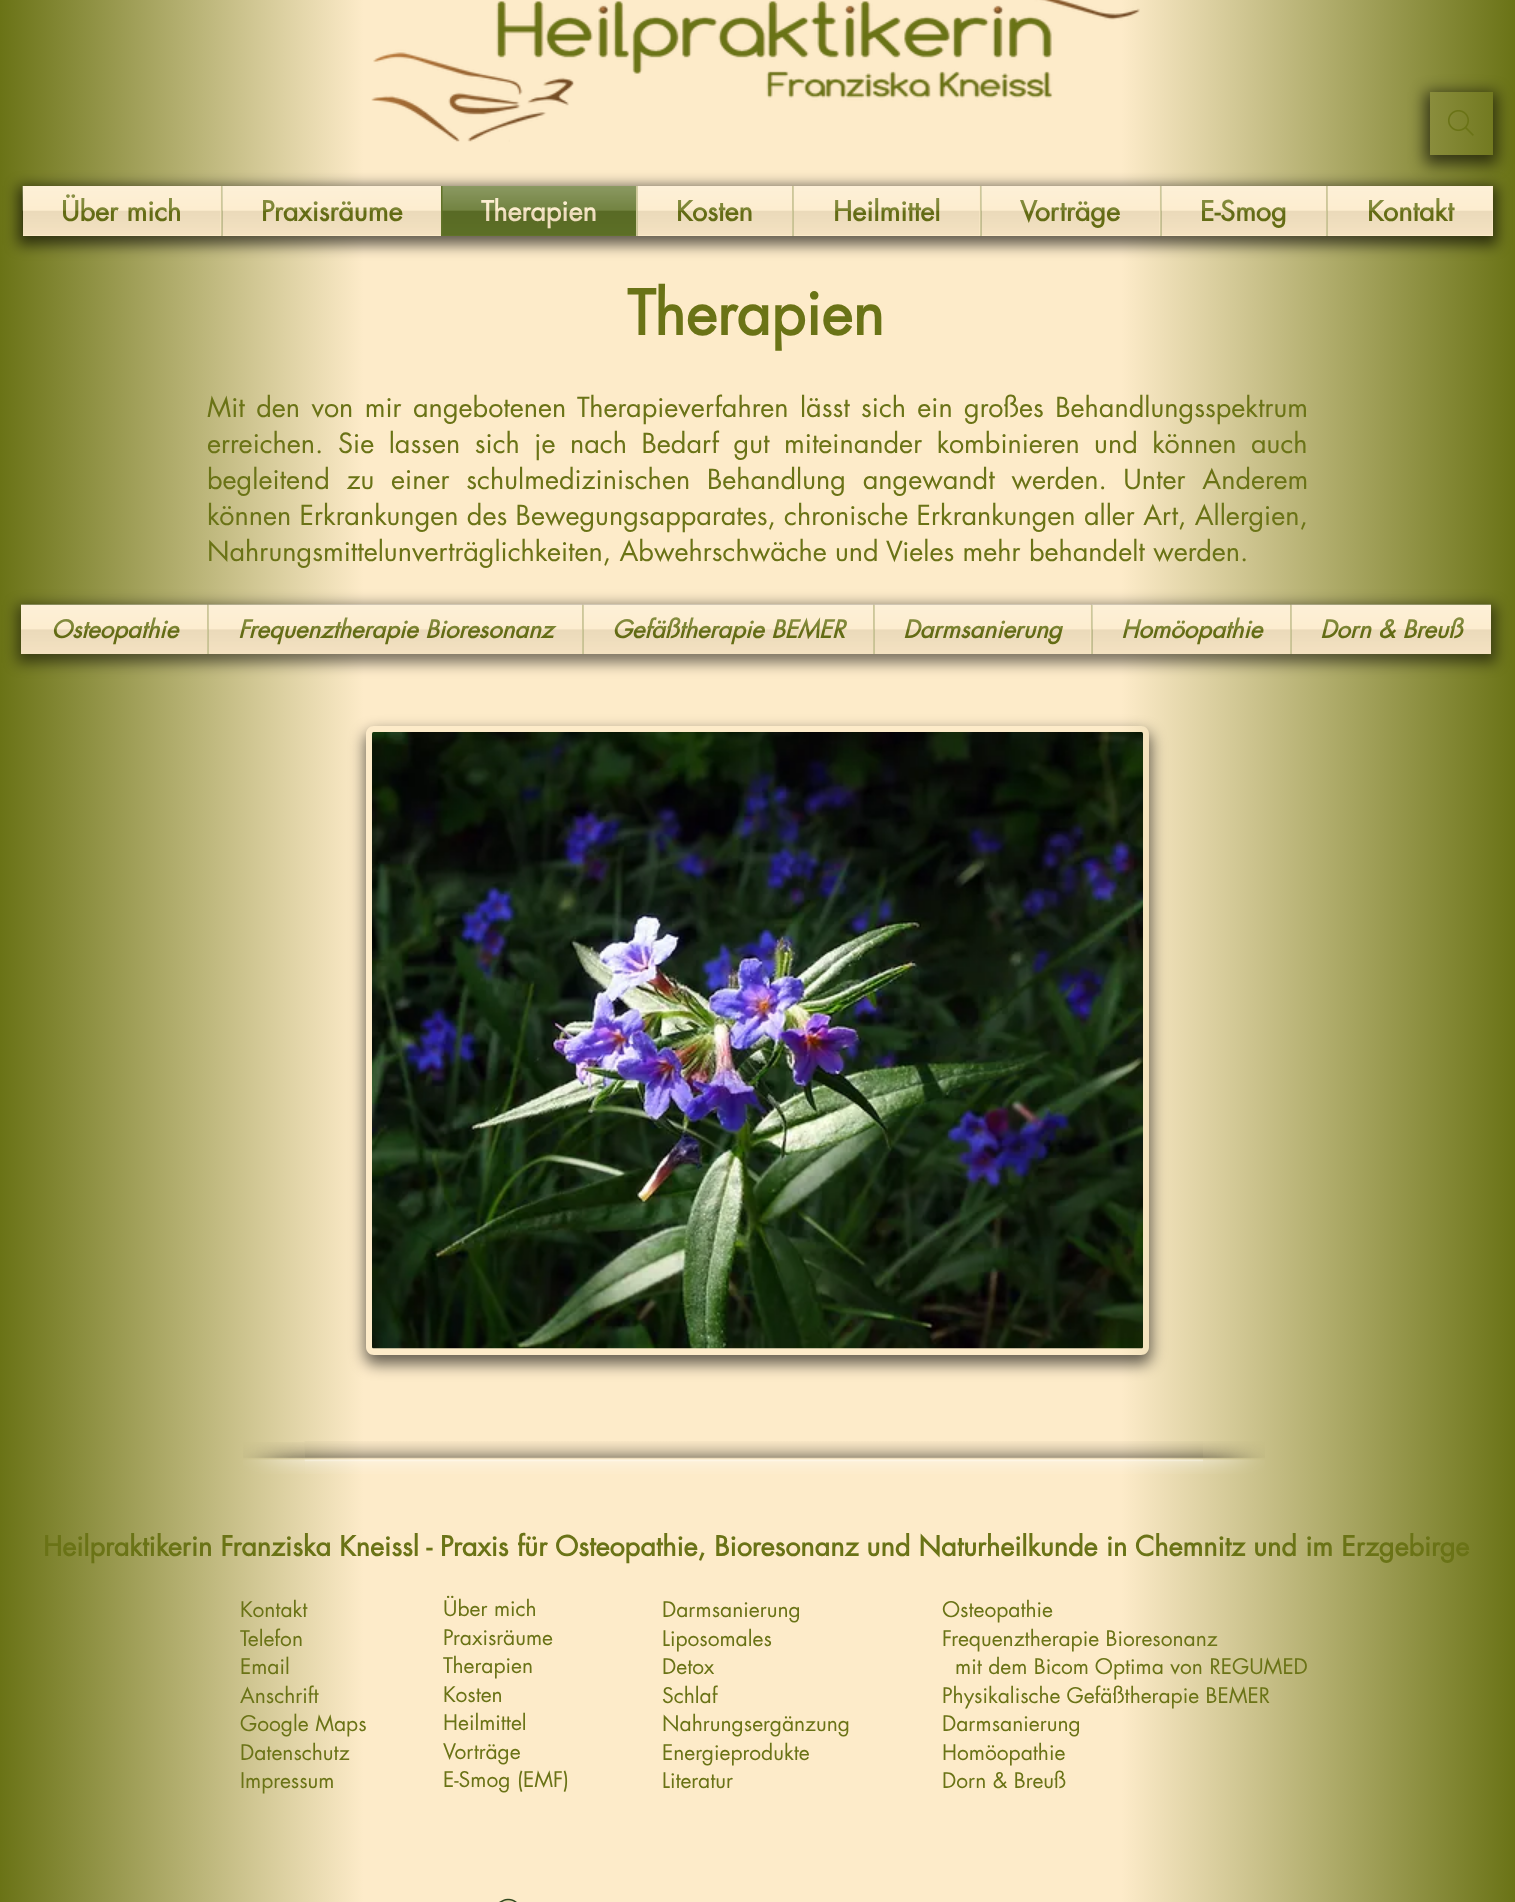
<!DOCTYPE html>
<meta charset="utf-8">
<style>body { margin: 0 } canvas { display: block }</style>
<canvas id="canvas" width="1515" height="1902"></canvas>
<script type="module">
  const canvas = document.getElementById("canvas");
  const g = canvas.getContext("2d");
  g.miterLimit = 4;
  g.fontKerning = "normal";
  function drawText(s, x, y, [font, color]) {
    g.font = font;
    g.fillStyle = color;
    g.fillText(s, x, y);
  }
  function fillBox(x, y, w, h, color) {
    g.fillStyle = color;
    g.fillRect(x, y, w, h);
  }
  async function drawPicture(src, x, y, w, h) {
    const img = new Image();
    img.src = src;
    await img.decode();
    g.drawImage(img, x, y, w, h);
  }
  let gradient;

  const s1 = ["bold 27px futura", "#6A7316"];
  const s2 = ["bold 27px futura", "#FDEBC9"];
  const s3 = ["bold 60px futura", "#6A7316"];
  const s4 = ["27px futura", "#6A7316"];
  const s5 = ["italic bold 24px futura", "#6A7316"];
  const s6 = ["21px futura", "#6A7316"];

  fillBox(0, 0, 1515, 1902, "#FFFFFF");
  gradient = g.createLinearGradient(1515, 65, 0, 65);
  gradient.addColorStop(0, "#6A7316");
  gradient.addColorStop(0.26, "#FDEBC9");
  gradient.addColorStop(0.76, "#FDEBC9");
  gradient.addColorStop(1, "#6A7316");
  g.fillStyle = gradient;
  g.fillRect(0, 0, 1515, 236);
  await drawPicture("pic1.png", 371, 0, 769, 142);
  g.save();
  g.beginPath();
  g.moveTo(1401, 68);
  g.lineTo(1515, 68);
  g.lineTo(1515, 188);
  g.lineTo(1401, 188);
  g.closePath();
  g.moveTo(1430, 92);
  g.lineTo(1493, 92);
  g.lineTo(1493, 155);
  g.lineTo(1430, 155);
  g.closePath();
  g.clip("evenodd");
  g.fillStyle = "rgba(0, 0, 0, 0.6)";
  g.filter = "blur(7.5px)";
  g.beginPath();
  g.rect(1425, 92, 72, 72);
  g.fill();
  g.filter = "none";
  g.restore();
  await drawPicture("pic2.png", 1448, 110, 26, 26);
  gradient = g.createLinearGradient(1515, 467, 0, 467);
  gradient.addColorStop(0, "#6A7316");
  gradient.addColorStop(0.26, "#FDEBC9");
  gradient.addColorStop(0.76, "#FDEBC9");
  gradient.addColorStop(1, "#6A7316");
  g.fillStyle = gradient;
  g.fillRect(0, 236, 1515, 463);
  g.fillStyle = "rgba(0, 0, 0, 0.6)";
  g.filter = "blur(7px)";
  g.beginPath();
  g.rect(18, 186, 1479, 59);
  g.fill();
  g.filter = "none";
  await drawPicture("pic3.png", 22, 186, 1, 42);
  fillBox(23, 186, 198, 50, "#FDEBC9");
  drawText("Über mich", 61, 221, s1);
  await drawPicture("pic4.png", 22, 186, 199, 49);
  fillBox(223, 186, 218, 50, "#FDEBC9");
  fillBox(221, 186, 2, 50, "#CEC799");
  drawText("Praxisräume", 261, 221, s1);
  await drawPicture("pic5.png", 222, 186, 219, 49);
  fillBox(441, 186, 195, 50, "#607328");
  drawText("Therapien", 481, 221, s2);
  await drawPicture("pic6.png", 442, 186, 194, 49);
  fillBox(638, 186, 154, 50, "#FDEBC9");
  fillBox(636, 186, 2, 50, "#CEC799");
  drawText("Kosten", 676, 221, s1);
  await drawPicture("pic7.png", 637, 186, 155, 49);
  fillBox(794, 186, 186, 50, "#FDEBC9");
  fillBox(792, 186, 2, 50, "#CEC799");
  drawText("Heilmittel", 833, 221, s1);
  await drawPicture("pic8.png", 793, 186, 187, 49);
  fillBox(982, 186, 178, 50, "#FDEBC9");
  fillBox(980, 186, 2, 50, "#CEC799");
  drawText("Vorträge", 1020, 221, s1);
  await drawPicture("pic9.png", 981, 186, 179, 49);
  fillBox(1162, 186, 164, 50, "#FDEBC9");
  fillBox(1160, 186, 2, 50, "#CEC799");
  drawText("E-Smog", 1200, 221, s1);
  await drawPicture("pic10.png", 1161, 186, 165, 49);
  fillBox(1328, 186, 165, 50, "#FDEBC9");
  fillBox(1326, 186, 2, 50, "#CEC799");
  drawText("Kontakt", 1367, 221, s1);
  await drawPicture("pic11.png", 1327, 186, 166, 49);
  drawText("Therapien", 627, 335, s3);
  g.wordSpacing = "3.1px";
  drawText("Mit den von mir angebotenen Therapieverfahren lässt sich ein großes Behandlungsspektrum", 207, 417, s4);
  g.wordSpacing = "6.25px";
  drawText("erreichen. Sie lassen sich je nach Bedarf gut miteinander kombinieren und können auch", 207, 453, s4);
  g.wordSpacing = "8.5px";
  drawText("begleitend zu einer schulmedizinischen Behandlung angewandt werden. Unter Anderem", 207, 489, s4);
  g.wordSpacing = "0px";
  drawText("können Erkrankungen des Bewegungsapparates, chronische Erkrankungen aller Art, Allergien,", 207, 525, s4);
  drawText("Nahrungsmittelunverträglichkeiten, Abwehrschwäche und Vieles mehr behandelt werden.", 207, 561, s4);
  g.fillStyle = "rgba(0, 0, 0, 0.5)";
  g.filter = "blur(7px)";
  g.beginPath();
  g.rect(17, 605, 1479, 58);
  g.fill();
  g.filter = "none";
  await drawPicture("pic12.png", 21, 604, 1470, 1);
  fillBox(21, 605, 186, 49, "#FDEBC9");
  drawText("Osteopathie", 51, 638, s5);
  await drawPicture("pic13.png", 21, 604, 186, 50);
  fillBox(209, 605, 373, 49, "#FDEBC9");
  fillBox(207, 605, 2, 49, "#CEC799");
  drawText("Frequenztherapie Bioresonanz", 238, 638, s5);
  await drawPicture("pic14.png", 208, 604, 374, 50);
  fillBox(584, 605, 289, 49, "#FDEBC9");
  fillBox(582, 605, 2, 49, "#CEC799");
  drawText("Gefäßtherapie BEMER", 612, 638, s5);
  await drawPicture("pic15.png", 583, 604, 290, 50);
  fillBox(875, 605, 216, 49, "#FDEBC9");
  fillBox(873, 605, 2, 49, "#CEC799");
  drawText("Darmsanierung", 903, 638, s5);
  await drawPicture("pic16.png", 874, 604, 217, 50);
  fillBox(1093, 605, 197, 49, "#FDEBC9");
  fillBox(1091, 605, 2, 49, "#CEC799");
  drawText("Homöopathie", 1121, 638, s5);
  await drawPicture("pic17.png", 1092, 604, 198, 50);
  fillBox(1292, 605, 199, 49, "#FDEBC9");
  fillBox(1290, 605, 2, 49, "#CEC799");
  drawText("Dorn & Breuß", 1320, 638, s5);
  await drawPicture("pic18.png", 1291, 604, 200, 50);
  gradient = g.createLinearGradient(1515, 1068, 0, 1068);
  gradient.addColorStop(0, "#6A7316");
  gradient.addColorStop(0.26, "#FDEBC9");
  gradient.addColorStop(0.76, "#FDEBC9");
  gradient.addColorStop(1, "#6A7316");
  g.fillStyle = gradient;
  g.fillRect(0, 699, 1515, 738);
  g.save();
  g.beginPath();
  g.moveTo(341, 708);
  g.lineTo(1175, 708);
  g.lineTo(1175, 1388);
  g.lineTo(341, 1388);
  g.closePath();
  g.moveTo(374, 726);
  g.lineTo(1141, 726);
  g.bezierCurveTo(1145.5, 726, 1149, 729.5, 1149, 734);
  g.lineTo(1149, 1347);
  g.bezierCurveTo(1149, 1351.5, 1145.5, 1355, 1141, 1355);
  g.lineTo(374, 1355);
  g.bezierCurveTo(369.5, 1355, 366, 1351.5, 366, 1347);
  g.lineTo(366, 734);
  g.bezierCurveTo(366, 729.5, 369.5, 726, 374, 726);
  g.closePath();
  g.clip("evenodd");
  g.fillStyle = "rgba(0, 0, 0, 0.6)";
  g.filter = "blur(7.5px)";
  g.beginPath();
  g.roundRect(365, 732, 786, 632, 9);
  g.fill();
  g.filter = "none";
  g.restore();
  await drawPicture("pic19.png", 372, 732, 771, 617);
  gradient = g.createLinearGradient(1515, 1901, 0, 1901);
  gradient.addColorStop(0, "#6A7316");
  gradient.addColorStop(0.26, "#FDEBC9");
  gradient.addColorStop(0.76, "#FDEBC9");
  gradient.addColorStop(1, "#6A7316");
  g.fillStyle = gradient;
  g.fillRect(0, 1437, 1515, 465);
  await drawPicture("pic20.png", 304, 1441, 899, 33);
  await drawPicture("pic21.png", 243, 1442, 62, 32);
  await drawPicture("pic22.png", 1203, 1441, 62, 33);
  drawText("Heilpraktikerin Franziska Kneissl - Praxis für Osteopathie, Bioresonanz und Naturheilkunde in Chemnitz und im Erzgebirge", 43, 1556, s1);
  drawText("Kontakt", 240, 1617, s6);
  drawText("Telefon", 240, 1646, s6);
  drawText("Email", 240, 1674, s6);
  drawText("Anschrift", 240, 1703, s6);
  drawText("Google Maps", 240, 1731, s6);
  drawText("Datenschutz", 240, 1760, s6);
  drawText("Impressum", 240, 1788, s6);
  drawText("Über mich", 443, 1616, s6);
  drawText("Praxisräume", 443, 1645, s6);
  drawText("Therapien", 443, 1673, s6);
  drawText("Kosten", 443, 1702, s6);
  drawText("Heilmittel", 443, 1730, s6);
  drawText("Vorträge", 443, 1759, s6);
  drawText("E-Smog (EMF)", 443, 1787, s6);
  drawText("Darmsanierung", 662, 1617, s6);
  drawText("Liposomales", 662, 1646, s6);
  drawText("Detox", 662, 1674, s6);
  drawText("Schlaf", 662, 1703, s6);
  drawText("Nahrungsergänzung", 662, 1731, s6);
  drawText("Energieprodukte", 662, 1760, s6);
  drawText("Literatur", 662, 1788, s6);
  drawText("Osteopathie", 942, 1617, s6);
  drawText("Frequenztherapie Bioresonanz", 942, 1646, s6);
  drawText("mit dem Bicom Optima von REGUMED", 955, 1674, s6);
  drawText("Physikalische Gefäßtherapie BEMER", 942, 1703, s6);
  drawText("Darmsanierung", 942, 1731, s6);
  drawText("Homöopathie", 942, 1760, s6);
  drawText("Dorn & Breuß", 942, 1788, s6);
  await drawPicture("pic23.png", 499, 1898, 18, 4);
</script>
